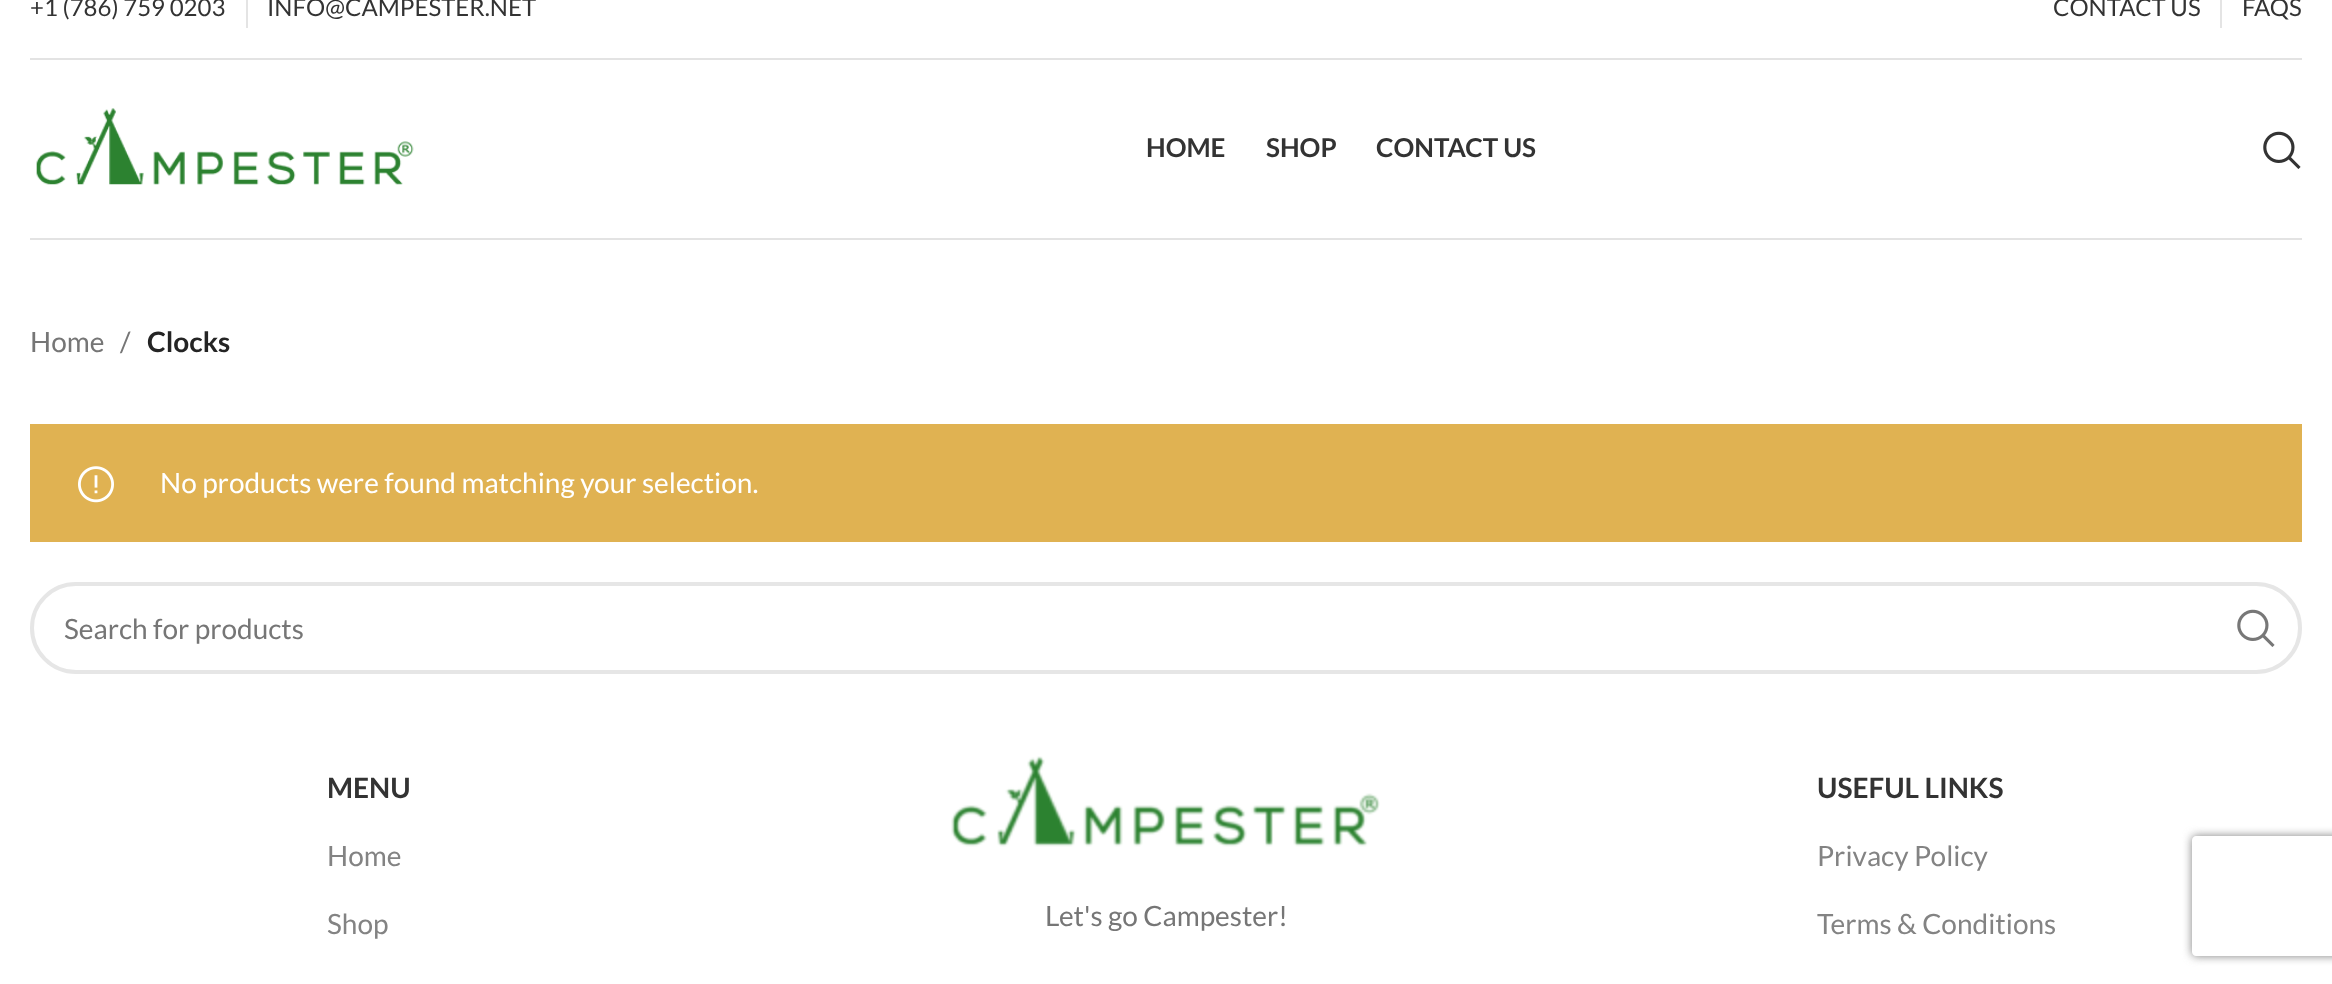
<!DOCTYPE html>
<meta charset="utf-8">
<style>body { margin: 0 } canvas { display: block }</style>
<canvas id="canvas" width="2332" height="984"></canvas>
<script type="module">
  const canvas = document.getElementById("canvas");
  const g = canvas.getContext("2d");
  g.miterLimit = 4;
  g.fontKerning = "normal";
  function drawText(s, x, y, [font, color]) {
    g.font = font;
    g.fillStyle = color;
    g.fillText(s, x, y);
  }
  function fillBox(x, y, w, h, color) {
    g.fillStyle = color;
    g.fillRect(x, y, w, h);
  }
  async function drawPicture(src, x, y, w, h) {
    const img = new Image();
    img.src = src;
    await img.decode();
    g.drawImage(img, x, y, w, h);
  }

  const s1 = ["24px Lato", "#333333"];
  const s2 = ["bold 26px Lato", "#333333"];
  const s3 = ["28px Lato", "#767676"];
  const s4 = ["bold 28px Lato", "#242424"];
  const s5 = ["28px Lato", "#FFFFFF"];
  const s6 = ["bold 28px Lato", "#333333"];
  const s7 = ["28px Lato", "#838383"];

  fillBox(0, 0, 2332, 984, "#FFFFFF");
  fillBox(30, 58, 2272, 2, "#E3E3E3");
  drawText("+1 (786) 759 0203", 30, 16, s1);
  fillBox(246, 0, 2, 28, "#E4E4E4");
  drawText("INFO@CAMPESTER.NET", 267, 16, s1);
  drawText("CONTACT US", 2053, 16, s1);
  fillBox(2220, 0, 2, 28, "#E4E4E4");
  drawText("FAQS", 2242, 16, s1);
  fillBox(30, 238, 2272, 2, "#E3E3E3");
  await drawPicture("pic1.png", 36, 108, 378, 77);
  drawText("HOME", 1146, 157, s2);
  drawText("SHOP", 1266, 157, s2);
  drawText("CONTACT US", 1376, 157, s2);
  await drawPicture("pic2.png", 2263, 131, 38, 38);
  drawText("Home", 30, 352, s3);
  drawText("/", 120, 352, s3);
  drawText("Clocks", 147, 352, s4);
  fillBox(30, 424, 2272, 118, "#E0B252");
  await drawPicture("pic3.png", 78, 466, 36, 37);
  drawText("No products were found matching your selection.", 160, 493, s5);
  g.beginPath();
  g.roundRect(32, 584, 2268, 88, 44);
  g.strokeStyle = "#E6E6E6";
  g.lineWidth = 4;
  g.stroke();
  drawText("Search for products", 64, 639, s3);
  await drawPicture("pic4.png", 2237, 609, 38, 38);
  drawText("MENU", 327, 798, s6);
  drawText("Home", 327, 866, s7);
  drawText("Shop", 327, 934, s7);
  await drawPicture("pic5.png", 951, 756, 429, 91);
  drawText("Let's go Campester!", 1045, 926, s3);
  drawText("USEFUL LINKS", 1817, 798, s6);
  drawText("Privacy Policy", 1817, 866, s7);
  drawText("Terms & Conditions", 1817, 934, s7);
  g.save();
  g.beginPath();
  g.moveTo(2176, 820);
  g.lineTo(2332, 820);
  g.lineTo(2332, 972);
  g.lineTo(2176, 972);
  g.closePath();
  g.moveTo(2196, 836);
  g.lineTo(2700, 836);
  g.bezierCurveTo(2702, 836, 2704, 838, 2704, 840);
  g.lineTo(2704, 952);
  g.bezierCurveTo(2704, 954, 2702, 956, 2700, 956);
  g.lineTo(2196, 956);
  g.bezierCurveTo(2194, 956, 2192, 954, 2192, 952);
  g.lineTo(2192, 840);
  g.bezierCurveTo(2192, 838, 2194, 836, 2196, 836);
  g.closePath();
  g.clip("evenodd");
  g.fillStyle = "#808080";
  g.filter = "blur(5px)";
  g.beginPath();
  g.roundRect(2192, 836, 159, 120, 4);
  g.fill();
  g.filter = "none";
  g.restore();
</script>
